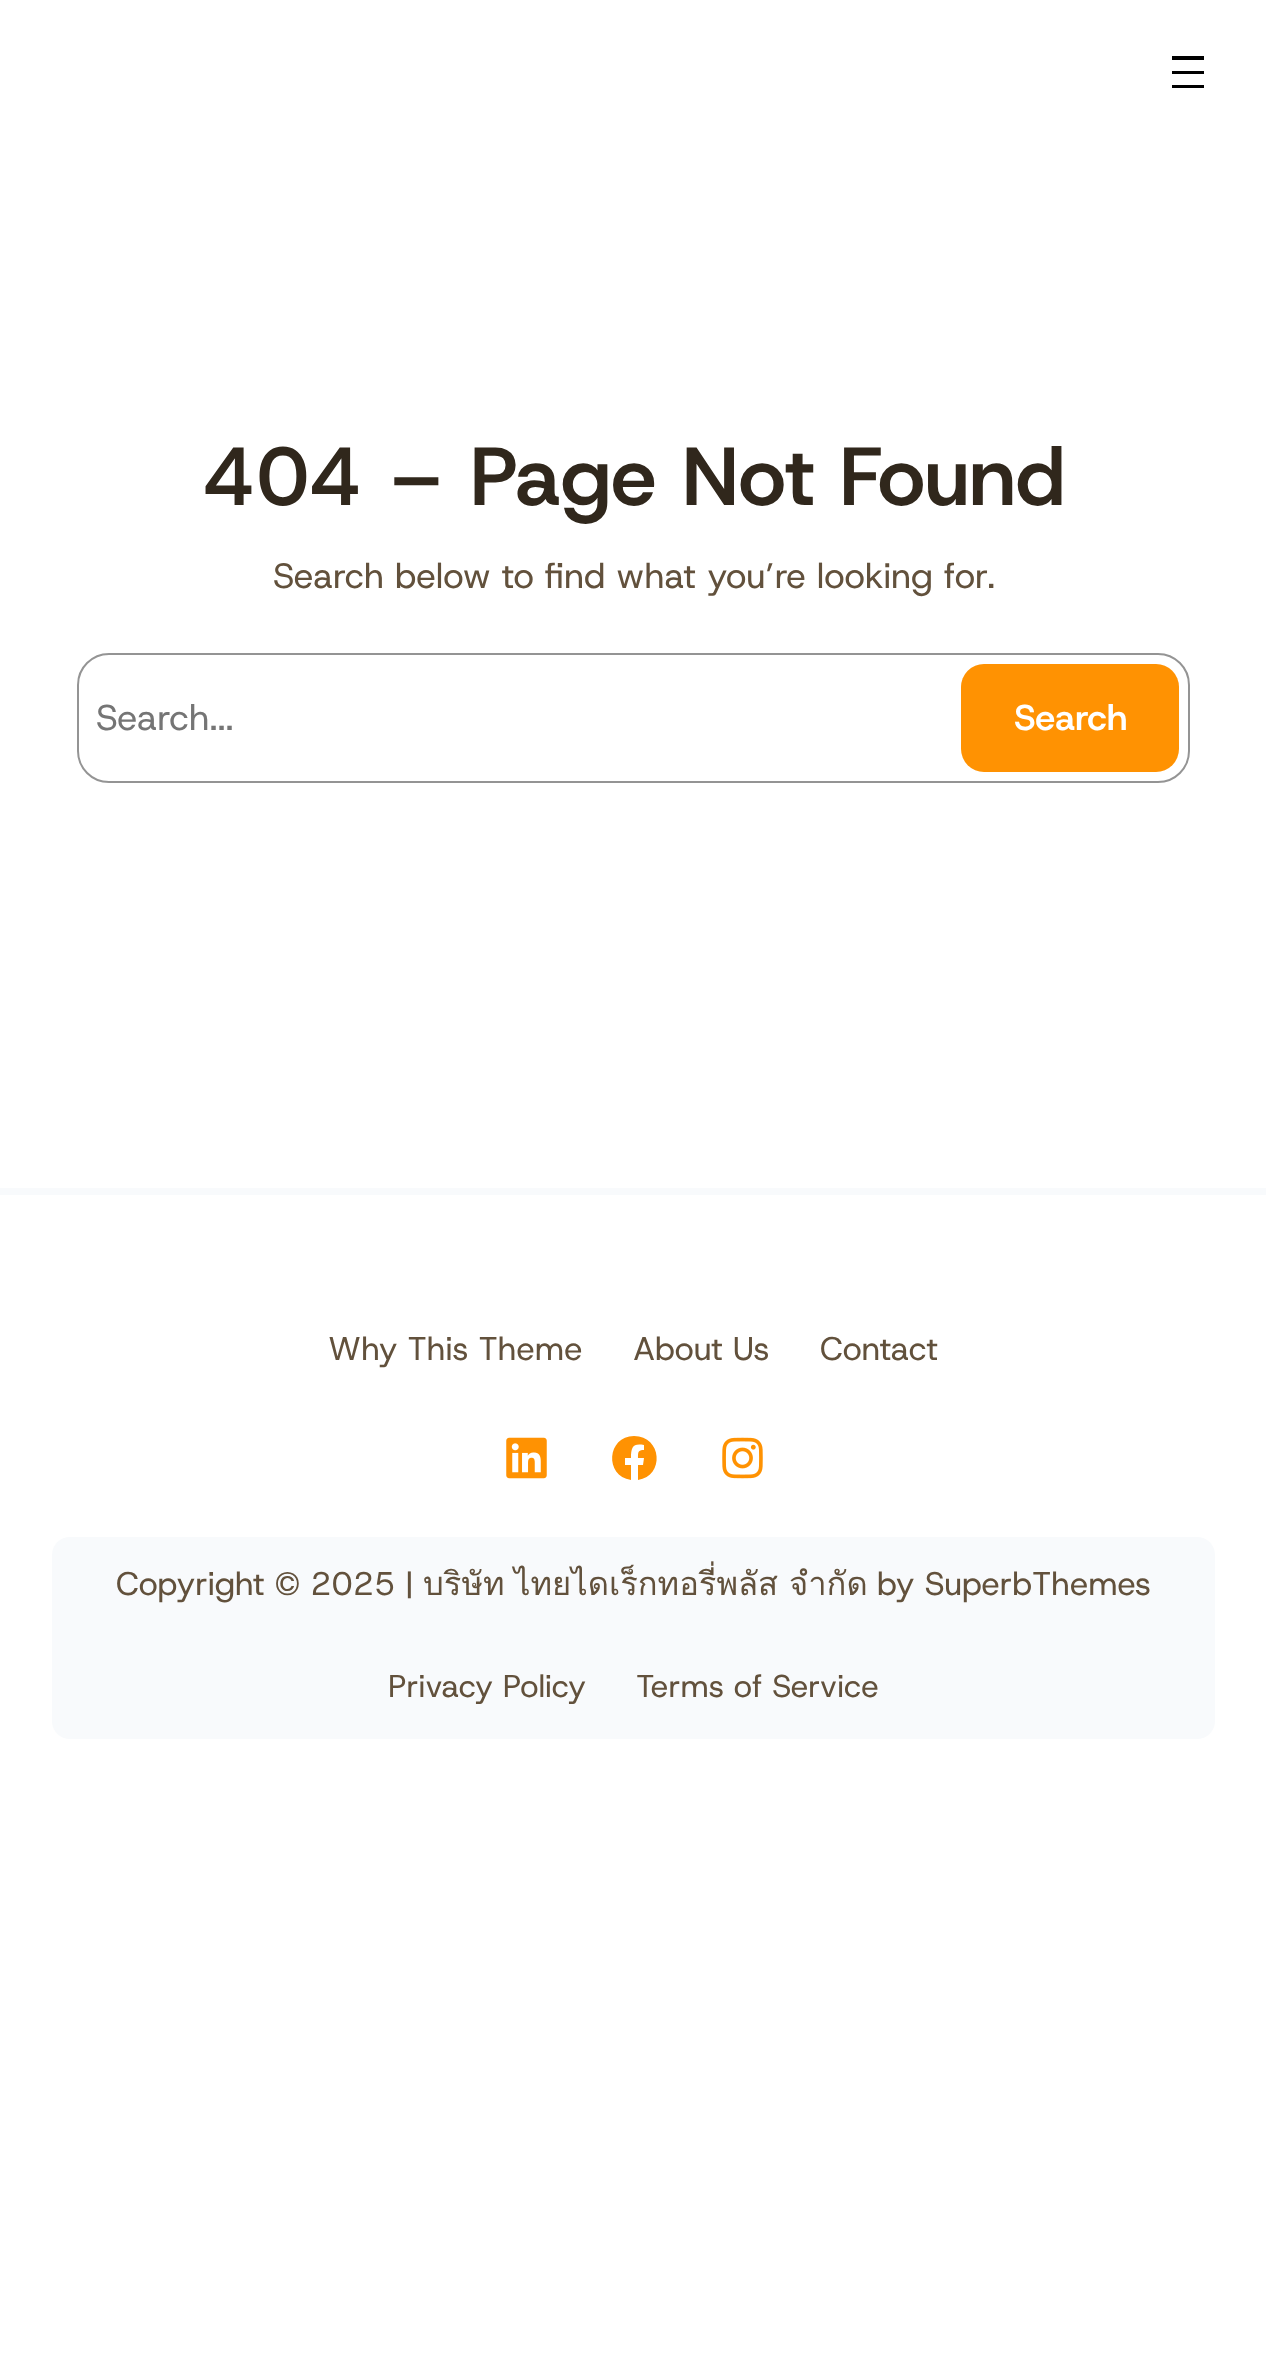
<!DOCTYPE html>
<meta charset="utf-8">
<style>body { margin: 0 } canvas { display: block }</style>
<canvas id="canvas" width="1266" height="2371"></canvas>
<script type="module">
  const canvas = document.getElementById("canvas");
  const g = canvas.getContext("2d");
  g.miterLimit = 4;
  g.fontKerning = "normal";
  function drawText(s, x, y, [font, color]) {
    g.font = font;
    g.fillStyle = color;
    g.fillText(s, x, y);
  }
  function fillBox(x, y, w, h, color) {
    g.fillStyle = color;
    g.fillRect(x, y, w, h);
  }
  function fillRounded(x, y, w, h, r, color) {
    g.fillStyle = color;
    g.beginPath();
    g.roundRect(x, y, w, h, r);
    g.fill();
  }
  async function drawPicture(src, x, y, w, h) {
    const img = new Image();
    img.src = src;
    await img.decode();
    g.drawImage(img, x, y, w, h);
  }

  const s1 = ["600 82px Host Grotesk", "#30271C"];
  const s2 = ["35.25px Host Grotesk", "#62513C"];
  const s3 = ["36px Host Grotesk", "#757575"];
  const s4 = ["600 36px Host Grotesk", "#FFFFFF"];
  const s5 = ["32.75px Host Grotesk", "#62513C"];
  const s6 = ["32.75px Loma", "#62513C"];
  const s7 = ["31.5px Host Grotesk", "#62513C"];

  fillBox(0, 0, 1266, 2371, "#FFFFFF");
  fillBox(1172, 56, 32, 4, "#000000");
  fillBox(1172, 71, 32, 3, "#000000");
  fillBox(1172, 85, 32, 3, "#000000");
  drawText("404 – Page Not Found", 203, 505, s1);
  drawText("Search below to find what you’re looking for.", 273, 588, s2);
  g.beginPath();
  g.roundRect(78, 654, 1111, 128, 31);
  g.strokeStyle = "#949494";
  g.lineWidth = 2;
  g.stroke();
  drawText("Search...", 96, 730, s3);
  fillRounded(961, 664, 218, 108, 23, "#FF9202");
  drawText("Search", 1014, 730, s4);
  fillBox(0, 1188, 1266, 7, "#F8FAFC");
  drawText("Why This Theme", 328, 1360, s5);
  drawText("About Us", 633, 1360, s5);
  drawText("Contact", 820, 1360, s5);
  await drawPicture("pic1.png", 506, 1437, 41, 42);
  g.fillStyle = "#FF9202";
  g.beginPath();
  g.moveTo(634, 1436);
  g.bezierCurveTo(607, 1436, 604, 1476, 631, 1480);
  g.lineTo(631, 1465);
  g.lineTo(625, 1465);
  g.lineTo(625, 1458);
  g.lineTo(631, 1458);
  g.bezierCurveTo(631, 1447, 633, 1443, 644, 1445);
  g.lineTo(644, 1450);
  g.bezierCurveTo(638, 1450, 638, 1452, 638, 1458);
  g.lineTo(644, 1458);
  g.lineTo(643, 1465);
  g.lineTo(638, 1465);
  g.lineTo(638, 1480);
  g.bezierCurveTo(665, 1476, 662, 1436, 634, 1436);
  g.closePath();
  g.fill();
  await drawPicture("pic2.png", 722, 1437, 41, 42);
  fillRounded(52, 1537, 1163, 202, 18, "#F8FAFC");
  drawText("Copyright © 2025 |", 116, 1595, s5);
  drawText("บริษัท", 423, 1595, s6);
  drawText("ไทยไดเร็กทอรี่พลัส", 514, 1595, s6);
  drawText("จำกัด", 789, 1595, s6);
  drawText("by SuperbThemes", 877, 1595, s5);
  drawText("Privacy Policy", 388, 1697, s7);
  drawText("Terms of Service", 636, 1697, s7);
</script>
